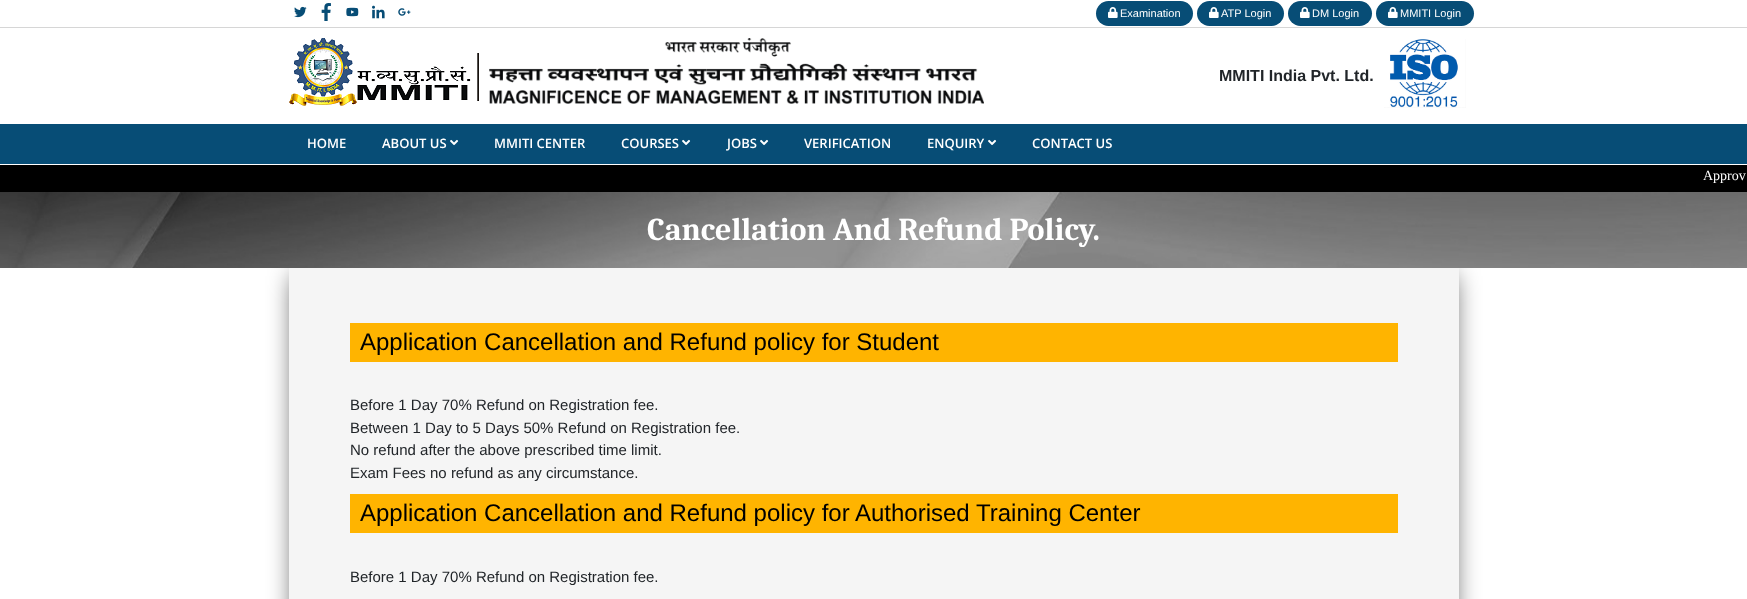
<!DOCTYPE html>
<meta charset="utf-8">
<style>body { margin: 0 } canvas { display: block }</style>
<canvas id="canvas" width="1747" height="599"></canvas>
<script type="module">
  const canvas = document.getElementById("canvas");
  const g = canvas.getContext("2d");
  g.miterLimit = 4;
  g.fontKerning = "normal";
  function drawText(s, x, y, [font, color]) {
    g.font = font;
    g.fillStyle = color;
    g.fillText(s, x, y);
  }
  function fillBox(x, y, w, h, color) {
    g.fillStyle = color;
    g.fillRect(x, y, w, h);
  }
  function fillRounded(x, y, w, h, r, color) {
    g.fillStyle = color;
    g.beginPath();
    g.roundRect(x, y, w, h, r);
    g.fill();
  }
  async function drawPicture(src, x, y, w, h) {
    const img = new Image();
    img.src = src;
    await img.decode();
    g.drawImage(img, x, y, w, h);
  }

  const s1 = ["11px Liberation Sans", "#FFFFFF"];
  const s2 = ["bold 16px Liberation Sans", "#212529"];
  const s3 = ["600 13px Open Sans", "#FFFFFF"];
  const s4 = ["14px Liberation Serif", "#FFFFFF"];
  const s5 = ["bold 32px Caladea", "#FFFFFF"];
  const s6 = ["24px Liberation Sans", "#000000"];
  const s7 = ["15px Liberation Sans", "#212529"];

  fillBox(0, 0, 1747, 599, "#FFFFFF");
  fillBox(0, 27, 1747, 1, "#D6D6D6");
  await drawPicture("pic1.png", 294, 6, 13, 12);
  await drawPicture("pic2.png", 321, 3, 10, 18);
  await drawPicture("pic3.png", 346, 7, 13, 10);
  await drawPicture("pic4.png", 372, 5, 13, 14);
  await drawPicture("pic5.png", 398, 8, 13, 8);
  fillRounded(1096, 1, 97, 25, 12.5, "#074D76");
  await drawPicture("pic6.png", 1108, 7, 10, 11);
  drawText("Examination", 1120, 17, s1);
  fillRounded(1197, 1, 87, 25, 12.5, "#074D76");
  await drawPicture("pic6.png", 1209, 7, 10, 11);
  drawText("ATP Login", 1221, 17, s1);
  fillRounded(1288, 1, 84, 25, 12.5, "#074D76");
  await drawPicture("pic6.png", 1300, 7, 10, 11);
  drawText("DM Login", 1312, 17, s1);
  fillRounded(1376, 1, 98, 25, 12.5, "#074D76");
  await drawPicture("pic6.png", 1388, 7, 10, 11);
  drawText("MMITI Login", 1400, 17, s1);
  await drawPicture("pic7.png", 289, 38, 190, 68);
  await drawPicture("pic8.png", 489, 38, 495, 66);
  drawText("MMITI India Pvt. Ltd.", 1219, 81, s2);
  await drawPicture("pic9.png", 1384, 39, 82, 69);
  fillBox(0, 124, 1747, 40, "#074D76");
  drawText("HOME", 307, 148, s3);
  drawText("ABOUT US", 382, 148, s3);
  await drawPicture("pic10.png", 450, 139, 9, 7);
  drawText("MMITI CENTER", 494, 148, s3);
  drawText("COURSES", 621, 148, s3);
  await drawPicture("pic10.png", 682, 139, 9, 7);
  drawText("JOBS", 727, 148, s3);
  await drawPicture("pic10.png", 760, 139, 9, 7);
  drawText("VERIFICATION", 804, 148, s3);
  drawText("ENQUIRY", 927, 148, s3);
  await drawPicture("pic10.png", 988, 139, 9, 7);
  drawText("CONTACT US", 1032, 148, s3);
  fillBox(0, 165, 1747, 27, "#000000");
  drawText("Approv", 1703, 180, s4);
  g.fillStyle = "rgba(0, 0, 0, 0.75)";
  g.filter = "blur(13px)";
  g.beginPath();
  g.rect(295, 276, 1158, 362);
  g.fill();
  g.filter = "none";
  await drawPicture("pic11.png", 0, 192, 1747, 76);
  drawText("Cancellation And Refund Policy.", 647, 240, s5);
  fillBox(289, 268, 1170, 331, "#F5F5F5");
  fillBox(350, 323, 1048, 39, "#FFB400");
  drawText("Application Cancellation and Refund policy for Student", 360, 350, s6);
  drawText("Before 1 Day 70% Refund on Registration fee.", 350, 410, s7);
  drawText("Between 1 Day to 5 Days 50% Refund on Registration fee.", 350, 433, s7);
  drawText("No refund after the above prescribed time limit.", 350, 455, s7);
  drawText("Exam Fees no refund as any circumstance.", 350, 478, s7);
  fillBox(350, 494, 1048, 39, "#FFB400");
  drawText("Application Cancellation and Refund policy for Authorised Training Center", 360, 521, s6);
  drawText("Before 1 Day 70% Refund on Registration fee.", 350, 582, s7);
</script>
